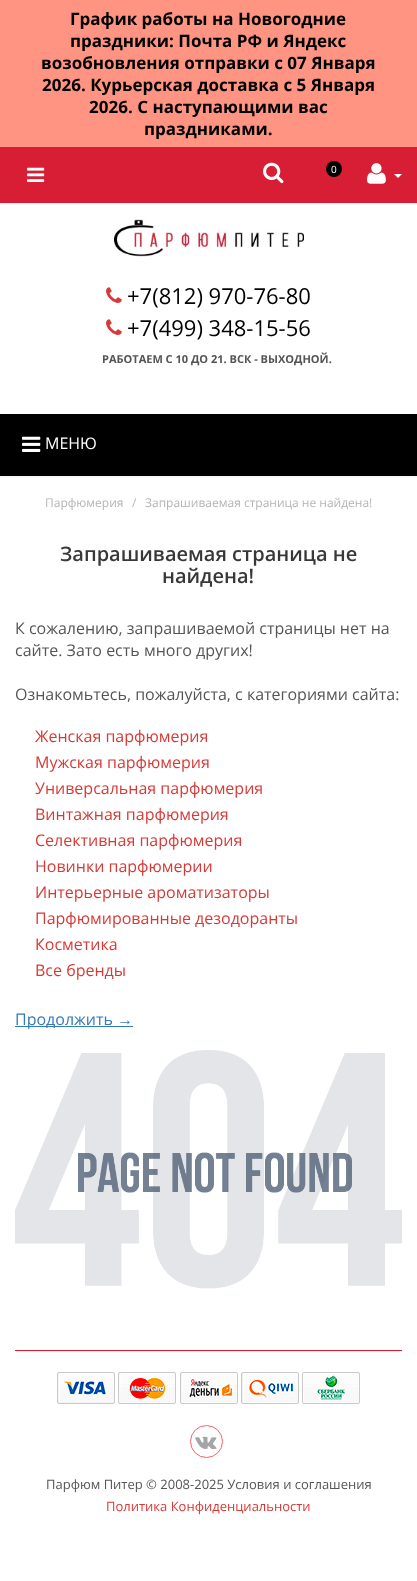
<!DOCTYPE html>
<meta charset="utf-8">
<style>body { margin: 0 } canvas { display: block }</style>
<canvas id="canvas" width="417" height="1581"></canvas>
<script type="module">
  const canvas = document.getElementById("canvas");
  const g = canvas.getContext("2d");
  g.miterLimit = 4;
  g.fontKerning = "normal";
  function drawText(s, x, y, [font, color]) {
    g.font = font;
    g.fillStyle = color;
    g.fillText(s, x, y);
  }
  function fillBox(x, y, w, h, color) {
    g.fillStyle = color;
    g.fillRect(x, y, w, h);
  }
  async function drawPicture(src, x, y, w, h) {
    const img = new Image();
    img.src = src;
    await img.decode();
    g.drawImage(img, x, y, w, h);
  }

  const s1 = ["bold 17px Open Sans", "#000000"];
  const s2 = ["10px Open Sans", "#FFFFFF"];
  const s3 = ["22px Open Sans", "#000000"];
  const s4 = ["bold 11px Open Sans", "#555555"];
  const s5 = ["16px Open Sans", "#FFFFFF"];
  const s6 = ["12px Open Sans", "#B6B5B5"];
  const s7 = ["600 20px Open Sans", "#383838"];
  const s8 = ["16px Open Sans", "#555555"];
  const s9 = ["16px Open Sans", "#D83936"];
  const s10 = ["16px Open Sans", "#337AB7"];
  const s11 = ["16px Liberation Sans", "#337AB7"];
  const s12 = ["13px Open Sans", "#555555"];
  const s13 = ["13px Open Sans", "#D83936"];

  fillBox(0, 0, 417, 1581, "#FFFFFF");
  fillBox(0, 0, 417, 147, "#FF9482");
  drawText("График работы на Новогодние", 70, 25, s1);
  drawText("праздники: Почта РФ и Яндекс", 70, 47, s1);
  drawText("возобновления отправки с 07 Января", 41, 69, s1);
  drawText("2026. Курьерская доставка с 5 Января", 42, 91, s1);
  drawText("2026. С наступающими вас", 89, 113, s1);
  drawText("праздниками.", 144, 135, s1);
  fillBox(0, 203, 417, 1, "#F6F6F6");
  fillBox(0, 147, 417, 56, "#D71E35");
  await drawPicture("pic1.png", 27, 167, 18, 15);
  await drawPicture("pic2.png", 263, 162, 21, 22);
  g.fillStyle = "#000000";
  g.beginPath();
  g.arc(334, 169, 8, 0, Math.PI * 2);
  g.fill();
  drawText("0", 331, 173, s2);
  await drawPicture("pic3.png", 367, 163, 19, 21);
  g.beginPath();
  g.moveTo(394, 174);
  g.lineTo(402, 174);
  g.lineTo(398, 178);
  g.closePath();
  g.fill();
  await drawPicture("pic4.png", 114, 219, 190, 38);
  await drawPicture("pic5.png", 106, 287, 16, 16);
  drawText("+7(812) 970-76-80", 127, 304, s3);
  await drawPicture("pic5.png", 106, 319, 16, 16);
  drawText("+7(499) 348-15-56", 127, 336, s3);
  drawText("РАБОТАЕМ С 10 ДО 21. ВСК - ВЫХОДНОЙ.", 102, 363, s4);
  fillBox(0, 414, 417, 62, "#000000");
  fillBox(0, 476, 417, 1, "#F5F5F5");
  await drawPicture("pic6.png", 22, 436, 19, 16);
  drawText("МЕНЮ", 45, 449, s5);
  drawText("Парфюмерия", 45, 507, s6);
  drawText("/", 132, 507, s6);
  drawText("Запрашиваемая страница не найдена!", 145, 507, s6);
  drawText("Запрашиваемая страница не", 60, 561, s7);
  drawText("найдена!", 162, 583, s7);
  drawText("К сожалению, запрашиваемой страницы нет на", 15, 634, s8);
  drawText("сайте. Зато есть много других!", 15, 656, s8);
  drawText("Ознакомьтесь, пожалуйста, с категориями сайта:", 15, 700, s8);
  drawText("Женская парфюмерия", 35, 742, s9);
  drawText("Мужская парфюмерия", 35, 768, s9);
  drawText("Универсальная парфюмерия", 35, 794, s9);
  drawText("Винтажная парфюмерия", 35, 820, s9);
  drawText("Селективная парфюмерия", 35, 846, s9);
  drawText("Новинки парфюмерии", 35, 872, s9);
  drawText("Интерьерные ароматизаторы", 35, 898, s9);
  drawText("Парфюмированные дезодоранты", 35, 924, s9);
  drawText("Косметика", 35, 950, s9);
  drawText("Все бренды", 35, 976, s9);
  fillBox(15, 1026, 118, 1, "#337AB7");
  drawText("Продолжить", 15, 1025, s10);
  drawText("→", 117, 1025, s11);
  await drawPicture("pic7.png", 15, 1050, 387, 239);
  fillBox(15, 1350, 387, 1, "#D71E35");
  fillBox(15, 1351, 387, 1, "#F5F5F5");
  await drawPicture("pic8.png", 57, 1372, 58, 32);
  g.beginPath();
  g.roundRect(57.5, 1372.5, 57, 31, 1.5);
  g.strokeStyle = "#CACACA";
  g.stroke();
  await drawPicture("pic9.png", 118, 1372, 58, 32);
  g.beginPath();
  g.roundRect(118.5, 1372.5, 57, 31, 1.5);
  g.stroke();
  await drawPicture("pic10.png", 180, 1372, 58, 32);
  g.beginPath();
  g.roundRect(180.5, 1372.5, 57, 31, 1.5);
  g.stroke();
  await drawPicture("pic11.png", 241, 1372, 58, 32);
  g.beginPath();
  g.roundRect(241.5, 1372.5, 57, 31, 1.5);
  g.stroke();
  await drawPicture("pic12.png", 302, 1372, 58, 32);
  g.beginPath();
  g.roundRect(302.5, 1372.5, 57, 31, 1.5);
  g.stroke();
  g.beginPath();
  g.arc(206.5, 1441.5, 16, 0, Math.PI * 2);
  g.strokeStyle = "#FF6161";
  g.stroke();
  await drawPicture("pic13.png", 195, 1436, 22, 13);
  drawText("Парфюм Питер © 2008-2025 Условия и соглашения", 46, 1489, s12);
  drawText("Политика Конфиденциальности", 106, 1511, s13);
</script>
